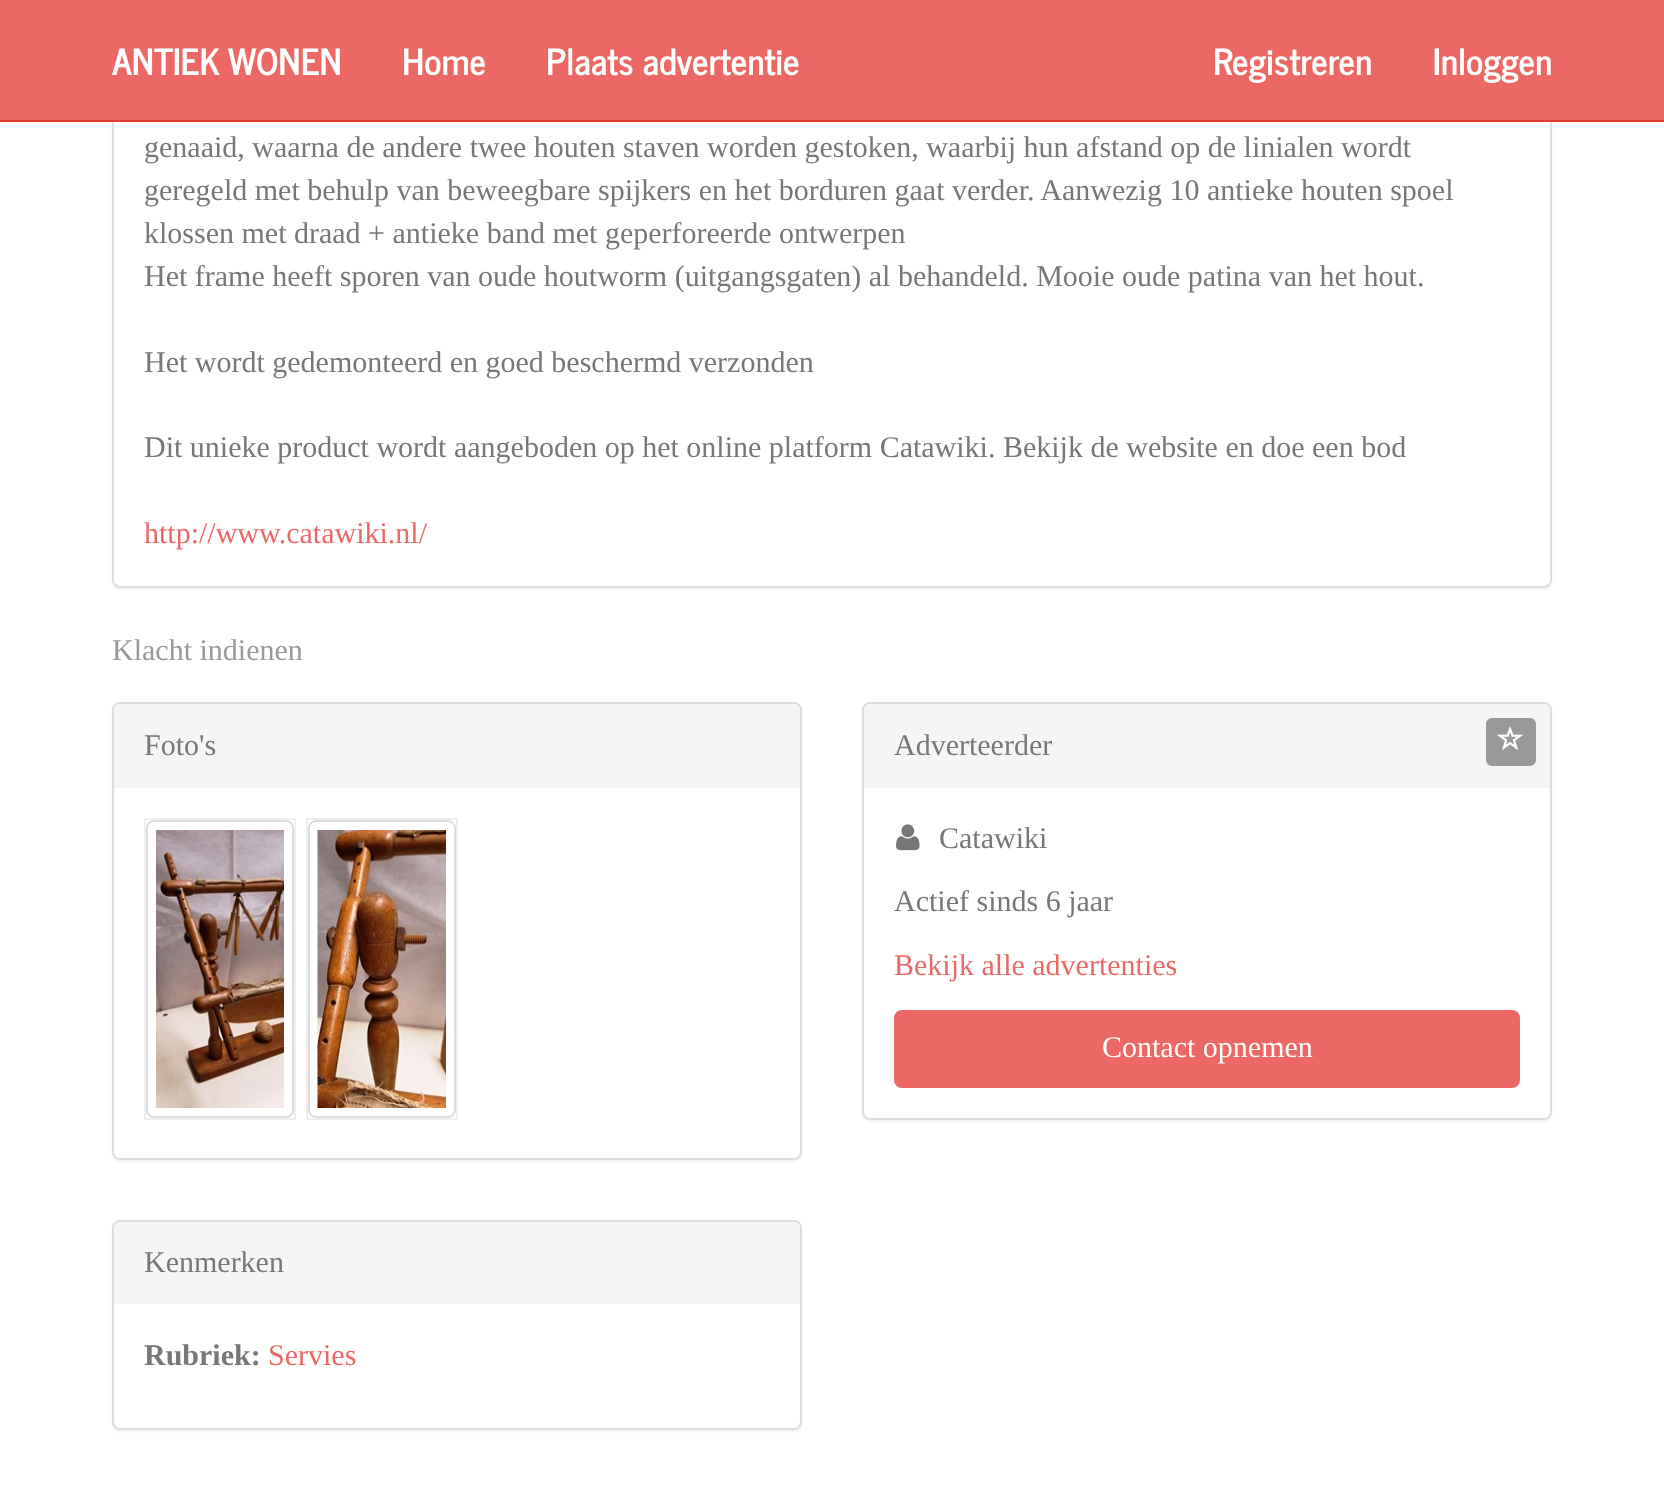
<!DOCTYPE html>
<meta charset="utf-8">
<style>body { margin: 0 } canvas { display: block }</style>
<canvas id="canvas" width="1664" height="1492"></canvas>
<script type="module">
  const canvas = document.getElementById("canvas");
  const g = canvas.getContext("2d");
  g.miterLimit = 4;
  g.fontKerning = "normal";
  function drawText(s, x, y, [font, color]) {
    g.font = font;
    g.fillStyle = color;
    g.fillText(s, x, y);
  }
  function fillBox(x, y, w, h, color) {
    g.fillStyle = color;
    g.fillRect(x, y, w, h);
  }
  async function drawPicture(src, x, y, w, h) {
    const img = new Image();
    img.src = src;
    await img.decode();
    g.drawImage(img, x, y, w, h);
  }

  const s1 = ["bold 36px News Cycle", "#FFFFFF"];
  const s2 = ["30px Liberation Serif", "#777777"];
  const s3 = ["30px Liberation Serif", "#EB6864"];
  const s4 = ["30px Liberation Serif", "#999999"];
  const s5 = ["bold 30px Liberation Serif", "#777777"];
  const s6 = ["30px Liberation Serif", "#FFFFFF"];

  fillBox(0, 0, 1664, 1492, "#FFFFFF");
  g.fillStyle = "rgba(0, 0, 0, 0.05)";
  g.filter = "blur(1px)";
  g.beginPath();
  g.roundRect(112, -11, 1440, 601, 8);
  g.fill();
  g.filter = "none";
  g.fillStyle = "#FFFFFF";
  g.beginPath();
  g.roundRect(113, -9, 1438, 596, 7);
  g.fill();
  g.strokeStyle = "#DDDDDD";
  g.lineWidth = 2;
  g.stroke();
  fillBox(0, 0, 1664, 120, "#EB6864");
  fillBox(0, 120, 1664, 2, "#E53C37");
  drawText("ANTIEK WONEN", 112, 75, s1);
  drawText("Home", 402, 75, s1);
  drawText("Plaats advertentie", 546, 75, s1);
  drawText("Registreren", 1213, 75, s1);
  drawText("Inloggen", 1433, 75, s1);
  drawText("genaaid, waarna de andere twee houten staven worden gestoken, waarbij hun afstand op de linialen wordt", 144, 157, s2);
  drawText("geregeld met behulp van beweegbare spijkers en het borduren gaat verder. Aanwezig 10 antieke houten spoel", 144, 200, s2);
  drawText("klossen met draad + antieke band met geperforeerde ontwerpen", 144, 243, s2);
  drawText("Het frame heeft sporen van oude houtworm (uitgangsgaten) al behandeld. Mooie oude patina van het hout.", 144, 286, s2);
  drawText("Het wordt gedemonteerd en goed beschermd verzonden", 144, 372, s2);
  drawText("Dit unieke product wordt aangeboden op het online platform Catawiki. Bekijk de website en doe een bod", 144, 457, s2);
  drawText("http://www.catawiki.nl/", 144, 543, s3);
  drawText("Klacht indienen", 112, 660, s4);
  g.fillStyle = "rgba(0, 0, 0, 0.05)";
  g.filter = "blur(1px)";
  g.beginPath();
  g.roundRect(112, 704, 690, 458, 8);
  g.fill();
  g.filter = "none";
  g.fillStyle = "#FFFFFF";
  g.beginPath();
  g.roundRect(113, 703, 688, 456, 7);
  g.fill();
  g.stroke();
  g.fillStyle = "#F5F5F5";
  g.beginPath();
  g.roundRect(114, 704, 686, 84, [6, 6, 0, 0]);
  g.fill();
  drawText("Foto's", 144, 755, s2);
  g.strokeStyle = "#EEEEEE";
  g.strokeRect(145, 819, 150, 300);
  g.beginPath();
  g.roundRect(147, 821, 146, 296, 7);
  g.strokeStyle = "#DDDDDD";
  g.stroke();
  await drawPicture("pic1.png", 156, 830, 128, 278);
  g.strokeStyle = "#EEEEEE";
  g.strokeRect(307, 819, 150, 300);
  g.beginPath();
  g.roundRect(309, 821, 146, 296, 7);
  g.strokeStyle = "#DDDDDD";
  g.stroke();
  await drawPicture("pic2.png", 317, 830, 129, 278);
  g.fillStyle = "rgba(0, 0, 0, 0.05)";
  g.filter = "blur(1px)";
  g.beginPath();
  g.roundRect(112, 1222, 690, 210, 8);
  g.fill();
  g.filter = "none";
  g.fillStyle = "#FFFFFF";
  g.beginPath();
  g.roundRect(113, 1221, 688, 208, 7);
  g.fill();
  g.stroke();
  g.fillStyle = "#F5F5F5";
  g.beginPath();
  g.roundRect(114, 1222, 686, 82, [6, 6, 0, 0]);
  g.fill();
  drawText("Kenmerken", 144, 1272, s2);
  drawText("Rubriek:", 144, 1365, s5);
  drawText("Servies", 268, 1365, s3);
  g.fillStyle = "rgba(0, 0, 0, 0.05)";
  g.filter = "blur(1px)";
  g.beginPath();
  g.roundRect(862, 704, 690, 418, 8);
  g.fill();
  g.filter = "none";
  g.fillStyle = "#FFFFFF";
  g.beginPath();
  g.roundRect(863, 703, 688, 416, 7);
  g.fill();
  g.stroke();
  g.fillStyle = "#F5F5F5";
  g.beginPath();
  g.roundRect(864, 704, 686, 84, [6, 6, 0, 0]);
  g.fill();
  drawText("Adverteerder", 894, 755, s2);
  g.fillStyle = "#999999";
  g.beginPath();
  g.roundRect(1487, 719, 48, 46, 5);
  g.fill();
  g.strokeStyle = "#999999";
  g.stroke();
  await drawPicture("pic3.png", 1497, 726, 26, 24);
  await drawPicture("pic4.png", 896, 824, 24, 27);
  drawText("Catawiki", 939, 848, s2);
  drawText("Actief sinds 6 jaar", 894, 911, s2);
  drawText("Bekijk alle advertenties", 894, 975, s3);
  g.beginPath();
  g.roundRect(895, 1011, 624, 76, 7);
  g.fill();
  g.strokeStyle = "#EB6864";
  g.stroke();
  drawText("Contact opnemen", 1102, 1057, s6);
</script>
